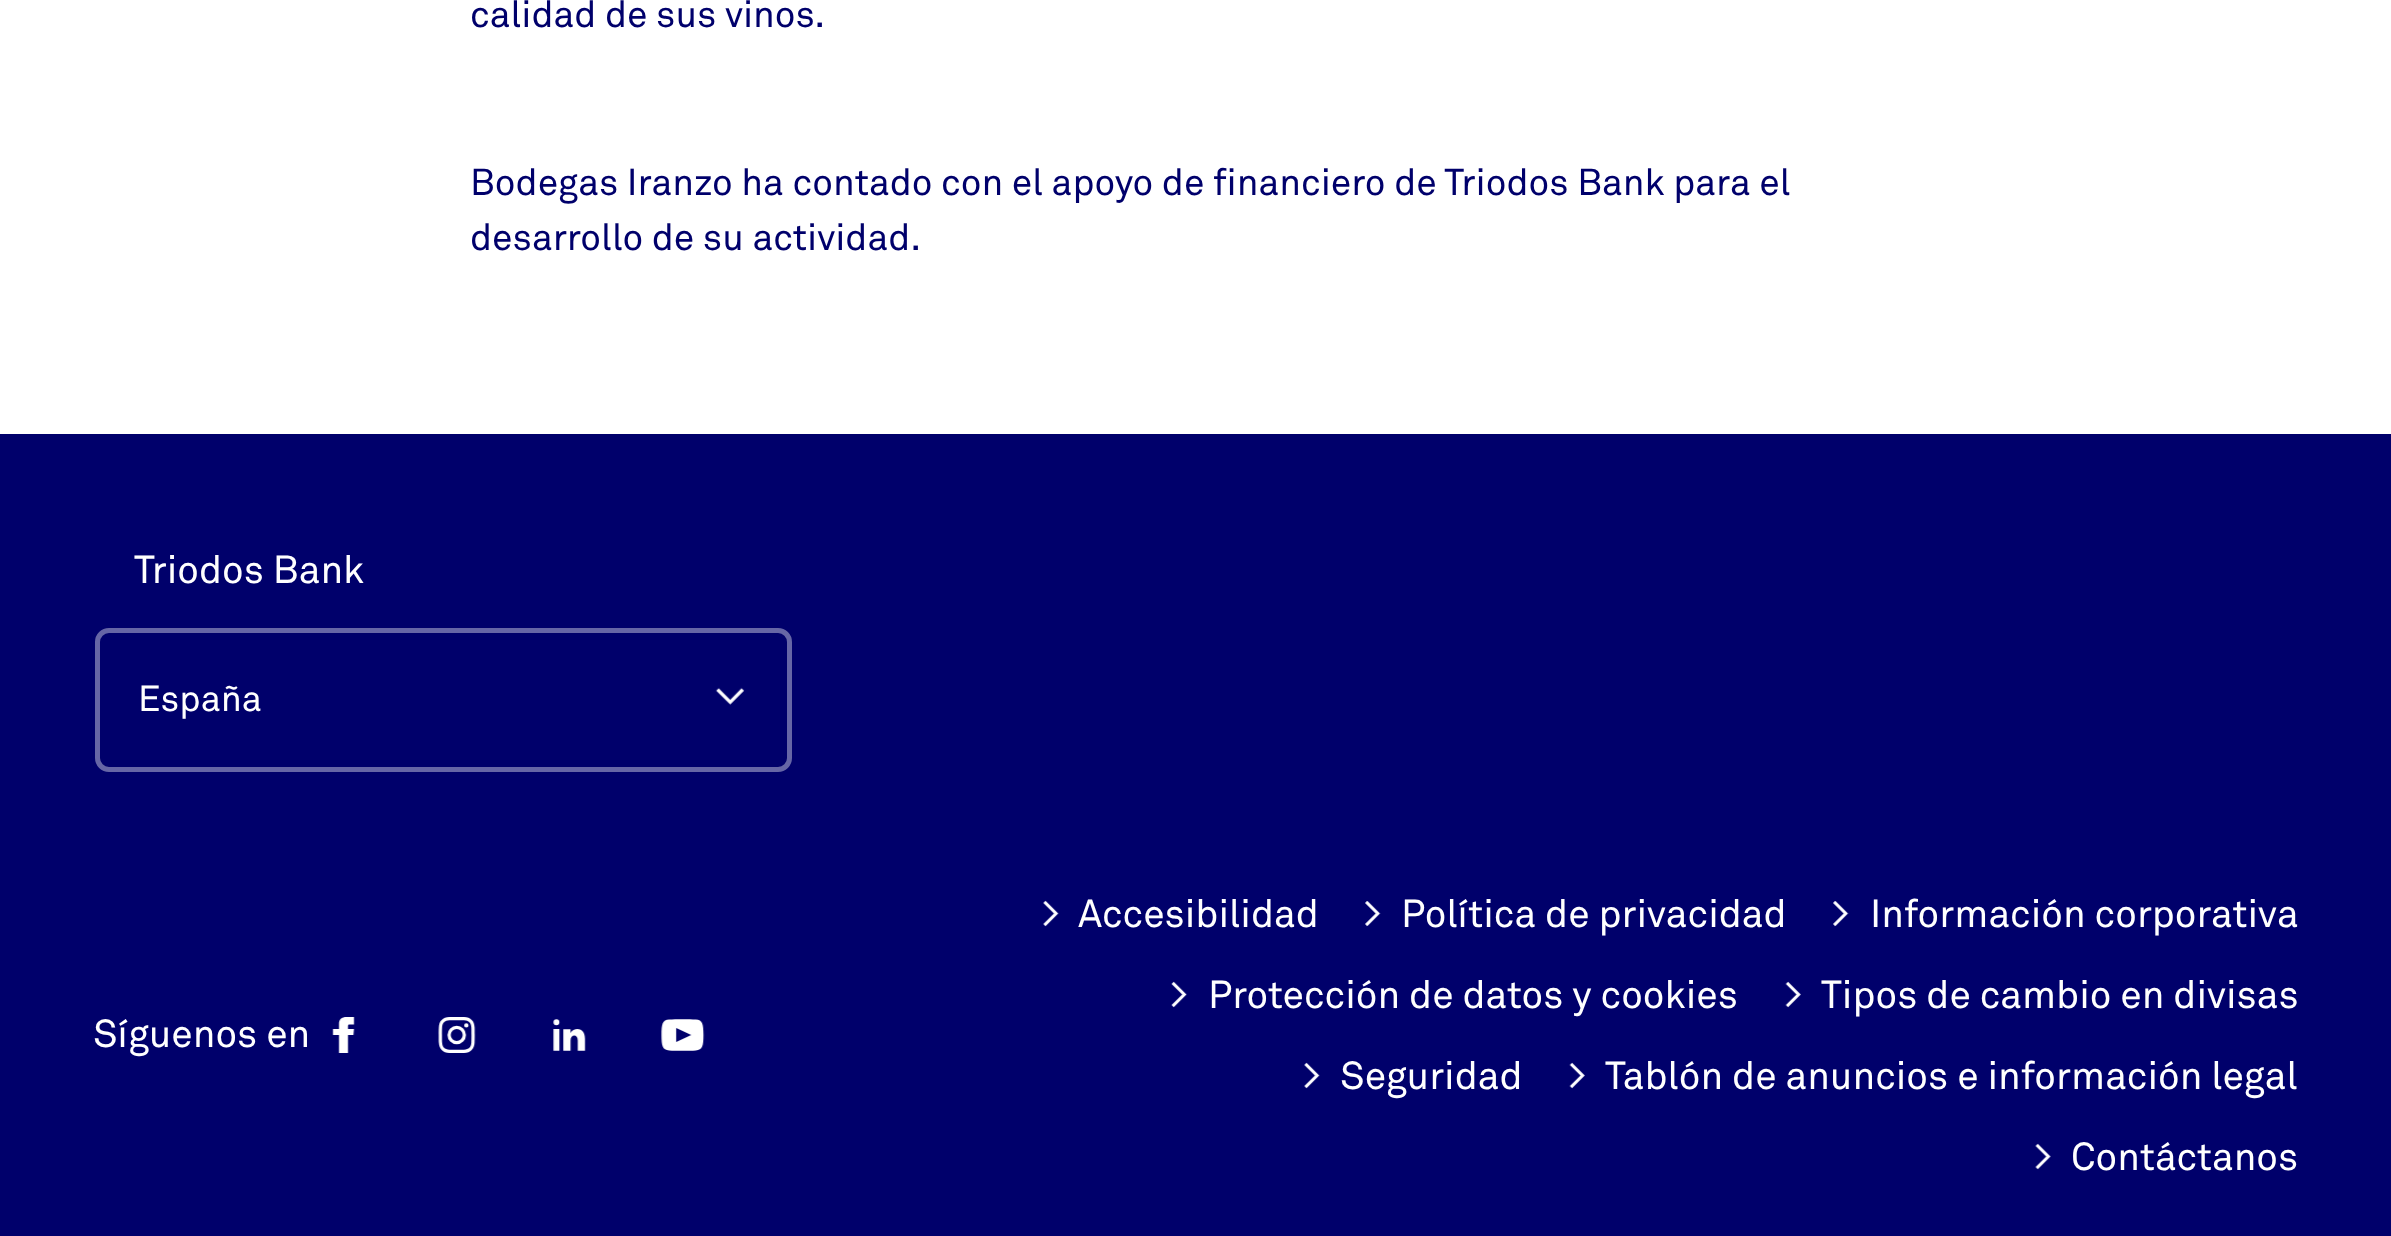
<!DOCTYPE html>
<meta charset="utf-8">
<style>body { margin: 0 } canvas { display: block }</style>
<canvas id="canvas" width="2391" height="1236"></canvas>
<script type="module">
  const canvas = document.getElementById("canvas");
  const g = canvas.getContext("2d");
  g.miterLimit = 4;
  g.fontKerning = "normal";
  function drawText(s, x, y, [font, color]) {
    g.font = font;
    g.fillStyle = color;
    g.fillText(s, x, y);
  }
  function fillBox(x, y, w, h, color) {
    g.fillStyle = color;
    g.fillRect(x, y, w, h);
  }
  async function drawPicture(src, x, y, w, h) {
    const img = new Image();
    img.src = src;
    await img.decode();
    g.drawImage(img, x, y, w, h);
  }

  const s1 = ["37.15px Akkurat", "#00006B"];
  const s2 = ["38.8px Akkurat", "#FFFFFF"];
  const s3 = ["36px Akkurat", "#FFFFFF"];

  fillBox(0, 0, 2391, 1236, "#FFFFFF");
  drawText("calidad de sus vinos.", 470, 27, s1);
  drawText("Bodegas Iranzo ha contado con el apoyo de financiero de Triodos Bank para el", 470, 195, s1);
  drawText("desarrollo de su actividad.", 470, 250, s1);
  fillBox(0, 434, 2391, 802, "#00006B");
  drawText("Triodos Bank", 134, 583, s2);
  g.beginPath();
  g.roundRect(97.5, 630.5, 692, 139, 11.5);
  g.strokeStyle = "#6666A6";
  g.lineWidth = 5;
  g.stroke();
  drawText("España", 138, 711, s3);
  await drawPicture("pic1.png", 715, 687, 30, 18);
  drawText("Síguenos en", 93, 1047, s2);
  await drawPicture("pic2.png", 332, 1017, 23, 36);
  await drawPicture("pic3.png", 438, 1017, 38, 36);
  await drawPicture("pic4.png", 553, 1019, 33, 32);
  await drawPicture("pic5.png", 661, 1019, 44, 32);
  await drawPicture("pic6.png", 1043, 900, 16, 27);
  drawText("Accesibilidad", 1078, 927, s2);
  await drawPicture("pic7.png", 1365, 901, 16, 26);
  drawText("Política de privacidad", 1401, 927, s2);
  await drawPicture("pic7.png", 1833, 901, 16, 26);
  drawText("Información corporativa", 1870, 927, s2);
  await drawPicture("pic8.png", 1171, 981, 16, 27);
  drawText("Protección de datos y cookies", 1208, 1008, s2);
  await drawPicture("pic9.png", 1785, 981, 16, 27);
  drawText("Tipos de cambio en divisas", 1821, 1008, s2);
  await drawPicture("pic6.png", 1304, 1062, 16, 27);
  drawText("Seguridad", 1340, 1089, s2);
  await drawPicture("pic9.png", 1569, 1062, 16, 27);
  drawText("Tablón de anuncios e información legal", 1605, 1089, s2);
  await drawPicture("pic10.png", 2035, 1143, 16, 27);
  drawText("Contáctanos", 2071, 1170, s2);
</script>
